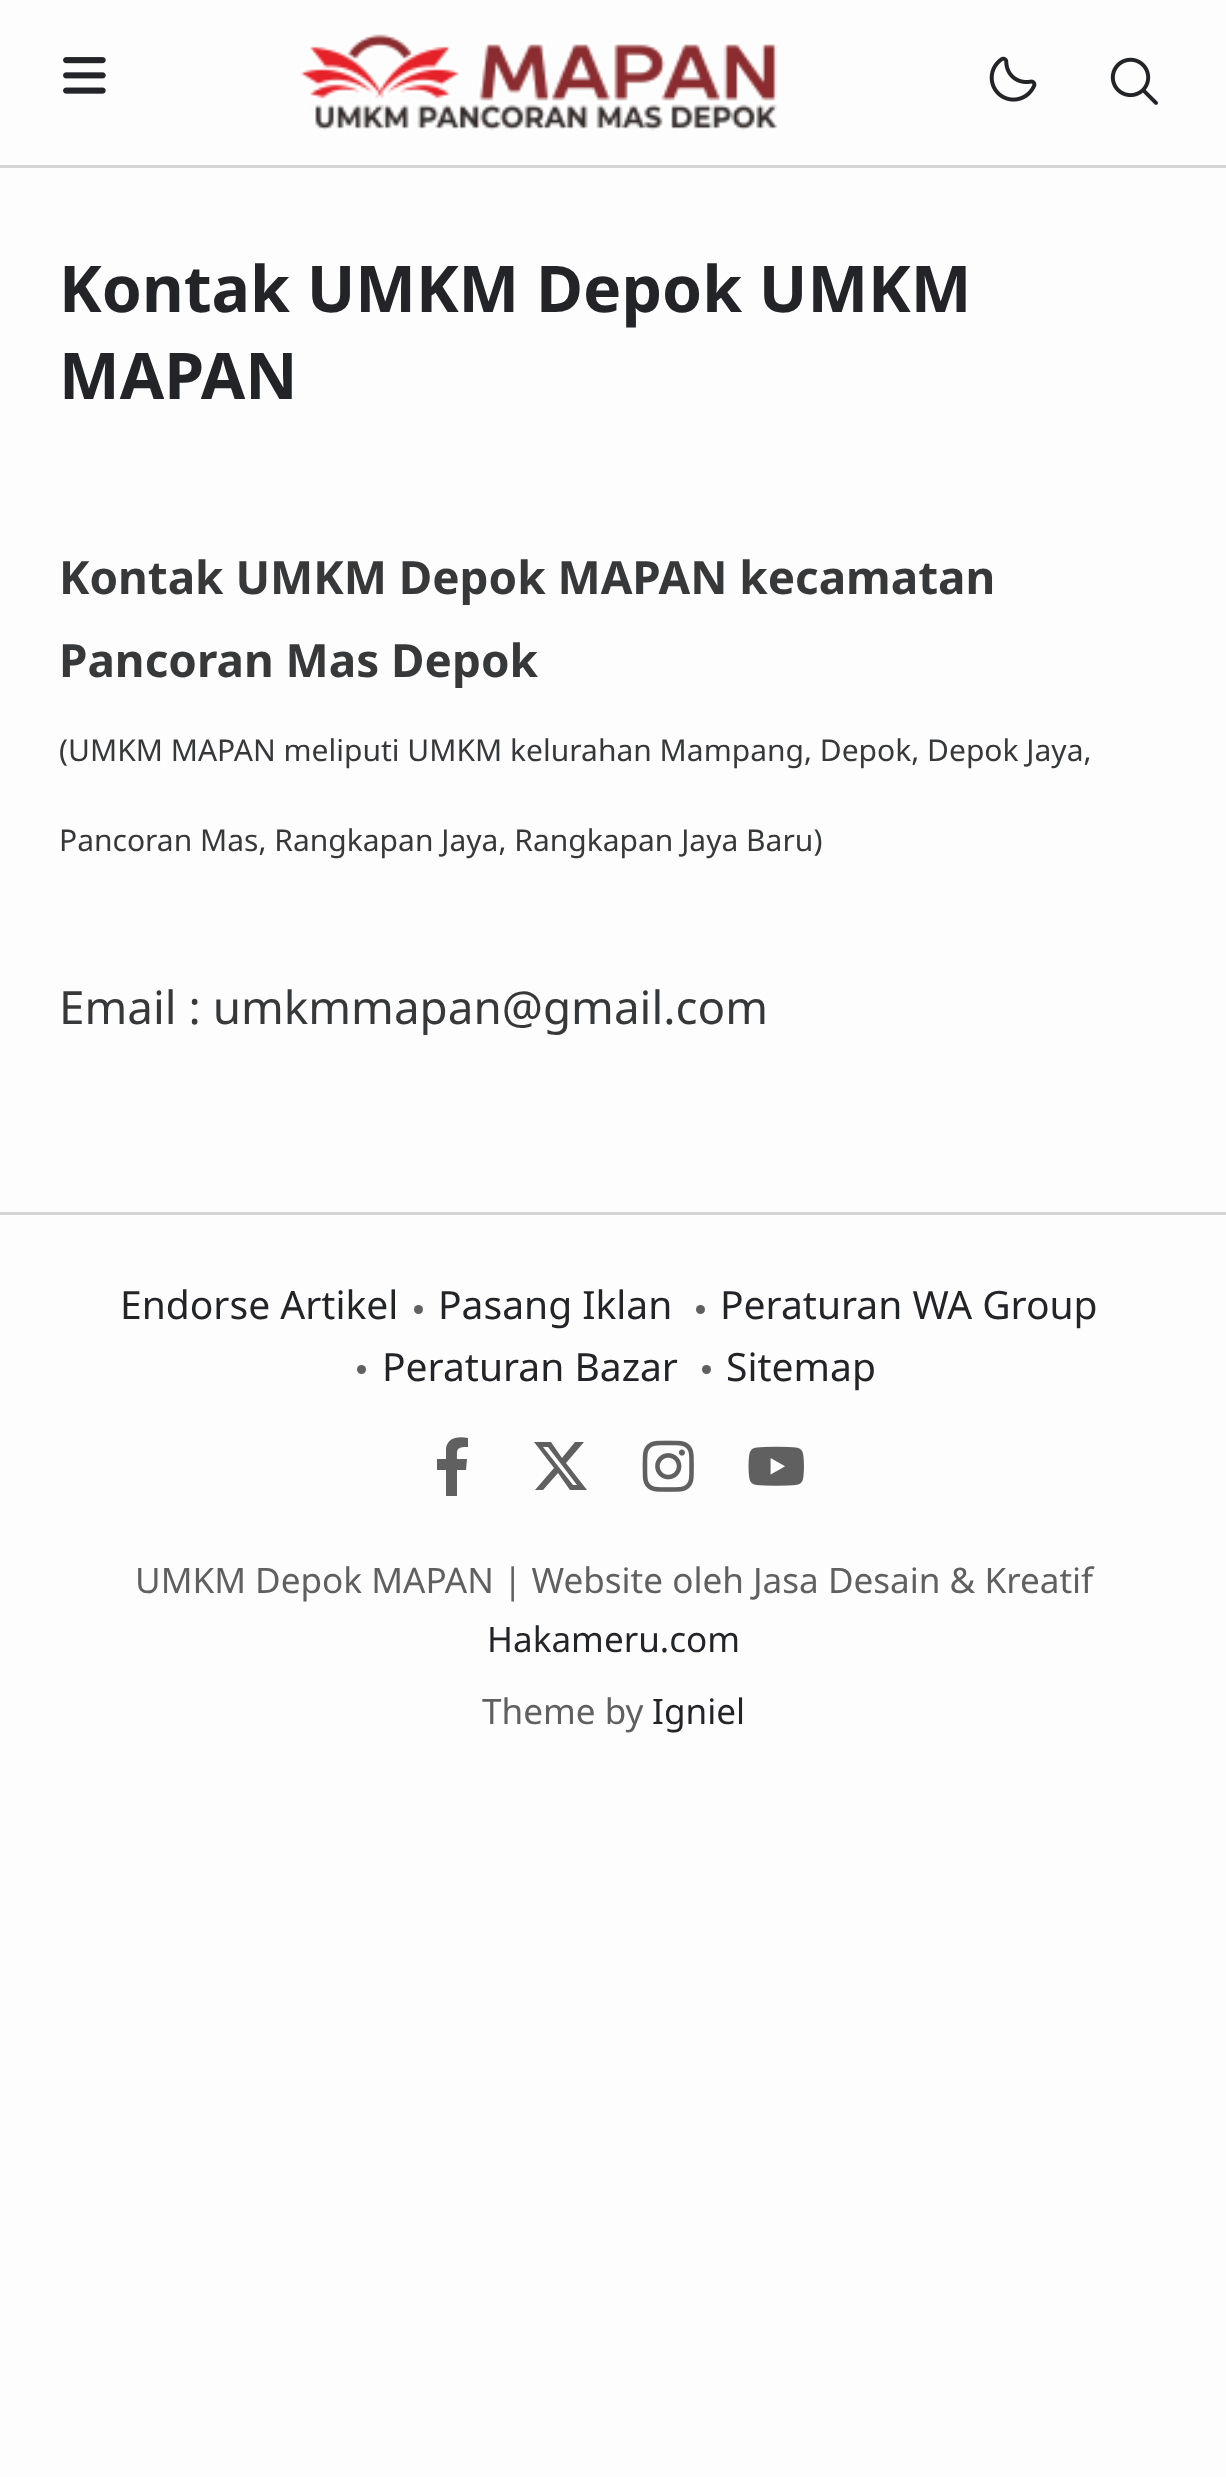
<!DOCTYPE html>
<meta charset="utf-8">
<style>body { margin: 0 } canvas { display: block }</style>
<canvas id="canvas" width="1226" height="2477"></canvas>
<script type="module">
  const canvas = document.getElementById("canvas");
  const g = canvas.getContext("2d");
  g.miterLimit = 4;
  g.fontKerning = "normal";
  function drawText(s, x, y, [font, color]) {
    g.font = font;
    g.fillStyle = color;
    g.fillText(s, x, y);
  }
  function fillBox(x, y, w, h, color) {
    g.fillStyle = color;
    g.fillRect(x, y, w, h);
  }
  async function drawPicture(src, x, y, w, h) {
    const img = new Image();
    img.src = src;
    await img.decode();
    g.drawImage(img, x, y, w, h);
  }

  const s1 = ["bold 64.3px Noto Sans", "#232428"];
  const s2 = ["bold 45.8px Noto Sans", "#36383A"];
  const s3 = ["30px Noto Sans", "#36383A"];
  const s4 = ["45.8px Noto Sans", "#36383A"];
  const s5 = ["39px Noto Sans", "#232428"];
  const s6 = ["35.1px Noto Sans", "#606060"];
  const s7 = ["35.1px Noto Sans", "#232428"];

  fillBox(0, 0, 1226, 2477, "#FDFDFD");
  fillBox(0, 165, 1226, 3, "#D4D4D4");
  await drawPicture("pic1.png", 63, 57, 43, 37);
  await drawPicture("pic2.png", 300, 34, 478, 97);
  await drawPicture("pic3.png", 989, 56, 48, 46);
  await drawPicture("pic4.png", 1110, 57, 48, 48);
  drawText("Kontak UMKM Depok UMKM", 59, 312, s1);
  drawText("MAPAN", 59, 399, s1);
  drawText("Kontak UMKM Depok MAPAN kecamatan", 59, 594, s2);
  drawText("Pancoran Mas Depok", 59, 677, s2);
  drawText("(UMKM MAPAN meliputi UMKM kelurahan Mampang, Depok, Depok Jaya,", 59, 761, s3);
  drawText("Pancoran Mas, Rangkapan Jaya, Rangkapan Jaya Baru)", 59, 851, s3);
  drawText("Email : umkmmapan@gmail.com", 59, 1024, s4);
  fillBox(0, 1212, 1226, 3, "#D4D4D4");
  drawText("Endorse Artikel", 120, 1319, s5);
  g.fillStyle = "#606060";
  g.beginPath();
  g.arc(418.5, 1309.5, 4.5, 0, Math.PI * 2);
  g.fill();
  drawText("Pasang Iklan", 438, 1319, s5);
  g.fillStyle = "#606060";
  g.beginPath();
  g.arc(700.5, 1309.5, 4.5, 0, Math.PI * 2);
  g.fill();
  drawText("Peraturan WA Group", 720, 1319, s5);
  g.fillStyle = "#606060";
  g.beginPath();
  g.arc(361.5, 1369.5, 4.5, 0, Math.PI * 2);
  g.fill();
  drawText("Peraturan Bazar", 382, 1381, s5);
  g.fillStyle = "#606060";
  g.beginPath();
  g.arc(706.5, 1369.5, 4.5, 0, Math.PI * 2);
  g.fill();
  drawText("Sitemap", 726, 1381, s5);
  g.fillStyle = "#606060";
  g.beginPath();
  g.moveTo(466, 1470);
  g.lineTo(467, 1459);
  g.lineTo(457, 1459);
  g.bezierCurveTo(457, 1449, 456, 1447, 468, 1447);
  g.lineTo(468, 1438);
  g.bezierCurveTo(459, 1436, 448, 1437, 446, 1448);
  g.lineTo(446, 1459);
  g.lineTo(437, 1459);
  g.lineTo(437, 1470);
  g.lineTo(446, 1470);
  g.lineTo(446, 1496);
  g.lineTo(457, 1496);
  g.lineTo(457, 1470);
  g.closePath();
  g.fill("evenodd");
  g.beginPath();
  g.moveTo(575, 1442);
  g.lineTo(584, 1442);
  g.lineTo(566, 1463);
  g.lineTo(587, 1490);
  g.lineTo(570, 1490);
  g.lineTo(558, 1473);
  g.lineTo(543, 1490);
  g.lineTo(535, 1490);
  g.lineTo(554, 1468);
  g.lineTo(534, 1442);
  g.lineTo(551, 1442);
  g.lineTo(562, 1458);
  g.closePath();
  g.moveTo(573, 1485);
  g.lineTo(577, 1485);
  g.lineTo(548, 1447);
  g.lineTo(543, 1447);
  g.closePath();
  g.fill("evenodd");
  await drawPicture("pic5.png", 642, 1440, 52, 52);
  await drawPicture("pic6.png", 748, 1446, 56, 40);
  drawText("UMKM Depok MAPAN | Website oleh Jasa Desain & Kreatif", 135, 1593, s6);
  drawText("Hakameru.com", 487, 1652, s7);
  drawText("Theme by", 482, 1724, s6);
  drawText("Igniel", 652, 1724, s7);
</script>
